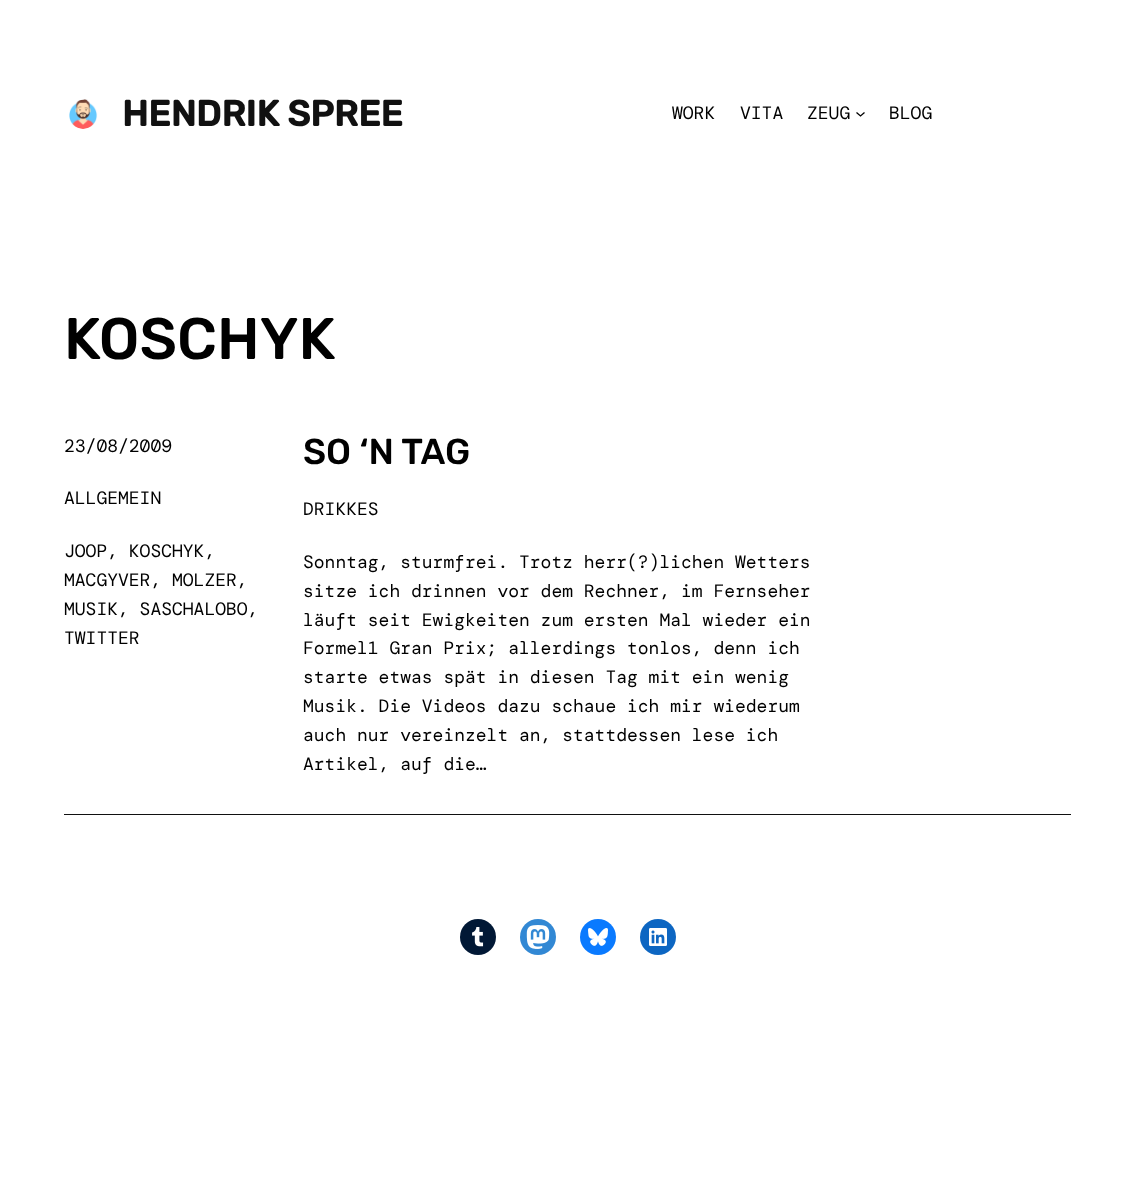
<!DOCTYPE html>
<meta charset="utf-8">
<style>body { margin: 0 } canvas { display: block }</style>
<canvas id="canvas" width="1135" height="1203"></canvas>
<script type="module">
  const canvas = document.getElementById("canvas");
  const g = canvas.getContext("2d");
  g.miterLimit = 4;
  g.fontKerning = "normal";
  function drawText(s, x, y, [font, color]) {
    g.font = font;
    g.fillStyle = color;
    g.fillText(s, x, y);
  }
  function fillBox(x, y, w, h, color) {
    g.fillStyle = color;
    g.fillRect(x, y, w, h);
  }
  async function drawPicture(src, x, y, w, h) {
    const img = new Image();
    img.src = src;
    await img.decode();
    g.drawImage(img, x, y, w, h);
  }

  const s1 = ["bold 36px Rubik", "#111111"];
  const s2 = ["18px DM Mono", "#000000"];
  const s3 = ["500 58.5px Rubik", "#000000"];
  const s4 = ["500 36px Rubik", "#000000"];

  fillBox(0, 0, 1135, 1203, "#FFFFFF");
  await drawPicture("pic1.png", 69, 99, 29, 30);
  drawText("HENDRIK SPREE", 122, 126, s1);
  drawText("WORK", 672, 119, s2);
  drawText("VITA", 740, 119, s2);
  drawText("ZEUG", 807, 119, s2);
  g.beginPath();
  g.moveTo(856.5, 112.5);
  g.lineTo(860.5, 116);
  g.lineTo(864.5, 112.5);
  g.strokeStyle = "#000000";
  g.lineWidth = 1.3;
  g.stroke();
  drawText("BLOG", 889, 119, s2);
  drawText("KOSCHYK", 64, 359, s3);
  drawText("23/08/2009", 64, 452, s2);
  drawText("ALLGEMEIN", 64, 504, s2);
  drawText("JOOP, KOSCHYK,", 64, 557, s2);
  drawText("MACGYVER, MOLZER,", 64, 586, s2);
  drawText("MUSIK, SASCHALOBO,", 64, 615, s2);
  drawText("TWITTER", 64, 644, s2);
  drawText("SO ‘N TAG", 303, 464, s4);
  drawText("DRIKKES", 303, 515, s2);
  drawText("Sonntag, sturmfrei. Trotz herr(?)lichen Wetters", 303, 568, s2);
  drawText("sitze ich drinnen vor dem Rechner, im Fernseher", 303, 597, s2);
  drawText("läuft seit Ewigkeiten zum ersten Mal wieder ein", 303, 626, s2);
  drawText("Formel1 Gran Prix; allerdings tonlos, denn ich", 303, 654, s2);
  drawText("starte etwas spät in diesen Tag mit ein wenig", 303, 683, s2);
  drawText("Musik. Die Videos dazu schaue ich mir wiederum", 303, 712, s2);
  drawText("auch nur vereinzelt an, stattdessen lese ich", 303, 741, s2);
  drawText("Artikel, auf die…", 303, 770, s2);
  fillBox(64, 814, 1007, 1, "#111111");
  g.fillStyle = "#011835";
  g.beginPath();
  g.arc(478, 937, 18, 0, Math.PI * 2);
  g.fill();
  await drawPicture("pic2.png", 472, 927, 12, 20);
  g.fillStyle = "#3288D4";
  g.beginPath();
  g.arc(538, 937, 18, 0, Math.PI * 2);
  g.fill();
  await drawPicture("pic3.png", 526, 925, 24, 24);
  g.fillStyle = "#0A7AFF";
  g.beginPath();
  g.arc(598, 937, 18, 0, Math.PI * 2);
  g.fill();
  await drawPicture("pic4.png", 588, 928, 20, 18);
  g.fillStyle = "#0D66C2";
  g.beginPath();
  g.arc(658, 937, 18, 0, Math.PI * 2);
  g.fill();
  await drawPicture("pic5.png", 649, 928, 18, 18);
</script>
